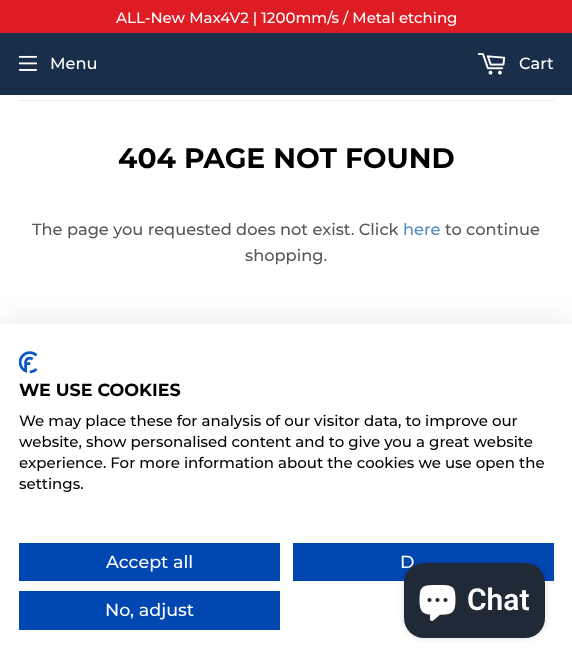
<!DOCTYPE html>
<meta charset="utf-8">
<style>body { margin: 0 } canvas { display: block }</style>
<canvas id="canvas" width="572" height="663"></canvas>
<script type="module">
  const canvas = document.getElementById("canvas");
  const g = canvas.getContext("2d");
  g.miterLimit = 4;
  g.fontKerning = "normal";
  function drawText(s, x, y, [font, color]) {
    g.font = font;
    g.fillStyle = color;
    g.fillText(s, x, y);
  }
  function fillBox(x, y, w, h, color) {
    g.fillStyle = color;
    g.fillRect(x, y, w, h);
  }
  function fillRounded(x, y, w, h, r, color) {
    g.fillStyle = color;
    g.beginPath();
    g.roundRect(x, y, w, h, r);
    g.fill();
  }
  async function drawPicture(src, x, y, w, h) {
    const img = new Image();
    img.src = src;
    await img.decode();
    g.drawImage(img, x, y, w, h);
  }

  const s1 = ["500 15px Montserrat", "#FFFFFF"];
  const s2 = ["500 16.25px Montserrat", "#FFFFFF"];
  const s3 = ["bold 28.2px Montserrat", "#000000"];
  const s4 = ["500 16.25px Montserrat", "#585858"];
  const s5 = ["500 16.25px Montserrat", "#528EC1"];
  const s6 = ["bold 17.5px Montserrat", "#000000"];
  const s7 = ["500 15px Montserrat", "#000000"];
  const s8 = ["500 17.5px Montserrat", "#FFFFFF"];
  const s9 = ["600 30px Roboto", "#FFFFFF"];

  fillBox(0, 0, 572, 663, "#FFFFFF");
  fillBox(0, 0, 572, 33, "#DE1C24");
  drawText("ALL-New Max4V2 | 1200mm/s / Metal etching", 116, 23, s1);
  fillBox(0, 33, 572, 62, "#182E49");
  await drawPicture("pic1.png", 18, 55, 20, 16);
  drawText("Menu", 50, 69, s2);
  await drawPicture("pic2.png", 477, 53, 29, 22);
  drawText("Cart", 519, 69, s2);
  fillBox(19, 100, 535, 1, "#ECECEC");
  drawText("404 PAGE NOT FOUND", 118, 168, s3);
  drawText("The page you requested does not exist. Click", 32, 235, s4);
  drawText("here", 403, 235, s5);
  drawText("to continue", 445, 235, s4);
  drawText("shopping.", 245, 261, s4);
  g.fillStyle = "rgba(0, 0, 0, 0.1)";
  g.filter = "blur(15px)";
  g.beginPath();
  g.rect(0, 324, 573, 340);
  g.fill();
  g.filter = "none";
  fillBox(0, 324, 572, 339, "#FFFFFF");
  await drawPicture("pic3.png", 19, 351, 19, 23);
  drawText("WE USE COOKIES", 19, 396, s6);
  drawText("We may place these for analysis of our visitor data, to improve our", 19, 426, s7);
  drawText("website, show personalised content and to give you a great website", 19, 447, s7);
  drawText("experience. For more information about the cookies we use open the", 19, 468, s7);
  drawText("settings.", 19, 489, s7);
  fillBox(19, 543, 261, 38, "#0047B2");
  drawText("Accept all", 106, 568, s8);
  fillBox(293, 543, 261, 38, "#0047B2");
  drawText("D", 400, 568, s8);
  fillBox(19, 591, 261, 39, "#0047B2");
  drawText("No, adjust", 105, 616, s8);
  g.fillStyle = "rgba(0, 0, 0, 0.15)";
  g.filter = "blur(3px)";
  g.beginPath();
  g.roundRect(404, 563, 141, 75, 20);
  g.fill();
  g.filter = "none";
  fillRounded(404, 563, 141, 75, 20, "#202A36");
  await drawPicture("pic4.png", 419, 585, 37, 36);
  drawText("Chat", 467, 610, s9);
</script>
